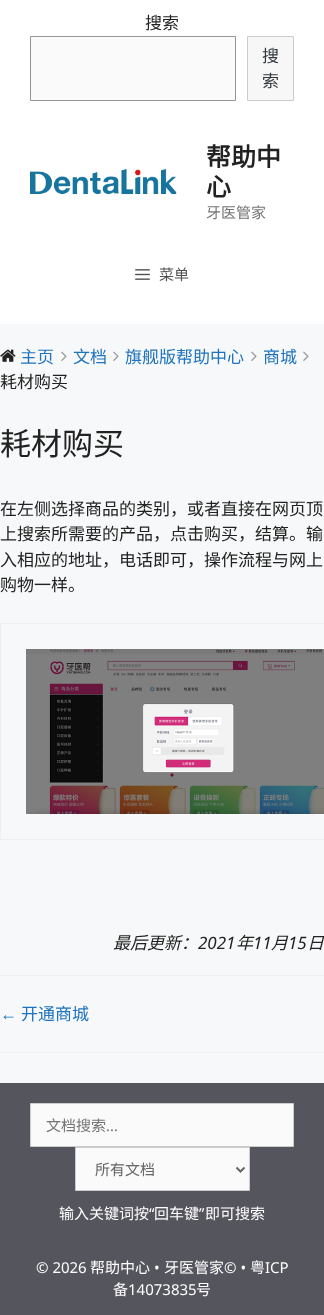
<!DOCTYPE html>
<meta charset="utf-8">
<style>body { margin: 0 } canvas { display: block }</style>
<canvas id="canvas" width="324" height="1315"></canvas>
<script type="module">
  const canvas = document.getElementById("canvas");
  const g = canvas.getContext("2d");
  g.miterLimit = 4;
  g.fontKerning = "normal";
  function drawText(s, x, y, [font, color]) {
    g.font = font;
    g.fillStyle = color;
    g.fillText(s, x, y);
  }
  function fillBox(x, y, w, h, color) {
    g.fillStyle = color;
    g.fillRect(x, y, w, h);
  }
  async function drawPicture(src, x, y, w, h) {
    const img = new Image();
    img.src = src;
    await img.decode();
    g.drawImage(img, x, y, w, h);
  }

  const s1 = ["17px Noto Sans CJK SC", "#222222"];
  const s2 = ["17px Noto Sans CJK SC", "#32373C"];
  const s3 = ["bold 25px Noto Sans CJK SC", "#222222"];
  const s4 = ["15px Noto Sans CJK SC", "#757575"];
  const s5 = ["15px Noto Sans CJK SC", "#515151"];
  const s6 = ["17px Noto Sans CJK SC", "#1E73BE"];
  const s7 = ["31px Noto Sans CJK SC", "#222222"];
  const s8 = ["italic 17px Noto Sans CJK SC", "#222222"];
  const s9 = ["italic 17px Noto Sans", "#222222"];
  const s10 = ["17px Liberation Sans", "#1E73BE"];
  const s11 = ["15px Noto Sans", "#757575"];
  const s12 = ["15px Noto Sans CJK SC", "#666666"];
  const s13 = ["15px Noto Sans CJK SC", "#FFFFFF"];
  const s14 = ["15px Noto Sans", "#FFFFFF"];

  fillBox(0, 0, 324, 1315, "#F7F8F9");
  fillBox(0, 0, 324, 324, "#FFFFFF");
  drawText("搜索", 145, 29, s1);
  g.fillStyle = "#FAFAFA";
  g.beginPath();
  g.rect(30.5, 36.5, 205, 64);
  g.fill();
  g.strokeStyle = "#949494";
  g.stroke();
  g.fillStyle = "#F7F7F7";
  g.beginPath();
  g.rect(247.5, 36.5, 46, 64);
  g.fill();
  g.strokeStyle = "#CCCCCC";
  g.stroke();
  drawText("搜", 262, 62, s2);
  drawText("索", 262, 87, s2);
  await drawPicture("pic1.png", 30, 169, 147, 25);
  drawText("帮助中", 206, 166, s3);
  drawText("心", 206, 196, s3);
  drawText("牙医管家", 206, 218, s4);
  await drawPicture("pic2.png", 135, 269, 15, 11);
  drawText("菜单", 159, 280, s5);
  await drawPicture("pic3.png", 0, 349, 16, 13);
  drawText("主页", 20, 363, s6);
  await drawPicture("pic4.png", 61, 351, 6, 10);
  drawText("文档", 73, 363, s6);
  await drawPicture("pic4.png", 113, 351, 6, 10);
  drawText("旗舰版帮助中心", 125, 363, s6);
  await drawPicture("pic4.png", 251, 351, 6, 10);
  drawText("商城", 263, 363, s6);
  await drawPicture("pic4.png", 303, 351, 6, 10);
  drawText("耗材购买", 0, 388, s1);
  drawText("耗材购买", 0, 455, s7);
  drawText("在左侧选择商品的类别，或者直接在网页顶", 0, 515, s1);
  drawText("上搜索所需要的产品，点击购买，结算。输", 0, 540, s1);
  drawText("入相应的地址，电话即可，操作流程与网上", 0, 566, s1);
  drawText("购物一样。", 0, 591, s1);
  g.strokeStyle = "#EEEEEE";
  g.strokeRect(0.5, 623.5, 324, 216);
  await drawPicture("pic5.png", 26, 649, 298, 165);
  drawText("最后更新：", 113, 949, s8);
  drawText("2021", 198, 949, s9);
  drawText("年", 236, 949, s8);
  drawText("11", 253, 949, s9);
  drawText("月", 271, 949, s8);
  drawText("15", 288, 949, s9);
  drawText("日", 307, 949, s8);
  fillBox(0, 975, 324, 1, "#EEEEEE");
  fillBox(0, 1052, 324, 1, "#EEEEEE");
  drawText("←", 0, 1020, s10);
  drawText("开通商城", 21, 1020, s6);
  fillBox(0, 1083, 324, 232, "#55555E");
  g.fillStyle = "#FAFAFA";
  g.beginPath();
  g.rect(30.5, 1103.5, 263, 43);
  g.fill();
  g.strokeStyle = "#CCCCCC";
  g.stroke();
  drawText("文档搜索", 46, 1131, s4);
  drawText("…", 106, 1131, s11);
  g.fillStyle = "#FAFAFA";
  g.beginPath();
  g.rect(75.5, 1147.5, 174, 43);
  g.fill();
  g.stroke();
  g.beginPath();
  g.moveTo(236.5, 1167.5);
  g.lineTo(240.5, 1171.5);
  g.lineTo(244.5, 1167.5);
  g.strokeStyle = "#666666";
  g.lineWidth = 2;
  g.stroke();
  drawText("所有文档", 95, 1175, s12);
  drawText("输入关键词按", 59, 1219, s13);
  drawText("“", 149, 1219, s14);
  drawText("回车键", 154, 1219, s13);
  drawText("”", 199, 1219, s14);
  drawText("即可搜索", 205, 1219, s13);
  drawText("© 2026", 36, 1273, s14);
  drawText("帮助中心", 90, 1273, s13);
  drawText("•", 154, 1273, s14);
  drawText("牙医管家", 164, 1273, s13);
  drawText("© •", 224, 1273, s14);
  drawText("粤", 250, 1273, s13);
  drawText("ICP", 265, 1273, s14);
  drawText("备", 113, 1295, s13);
  drawText("14073835", 128, 1295, s14);
  drawText("号", 196, 1295, s13);
</script>
